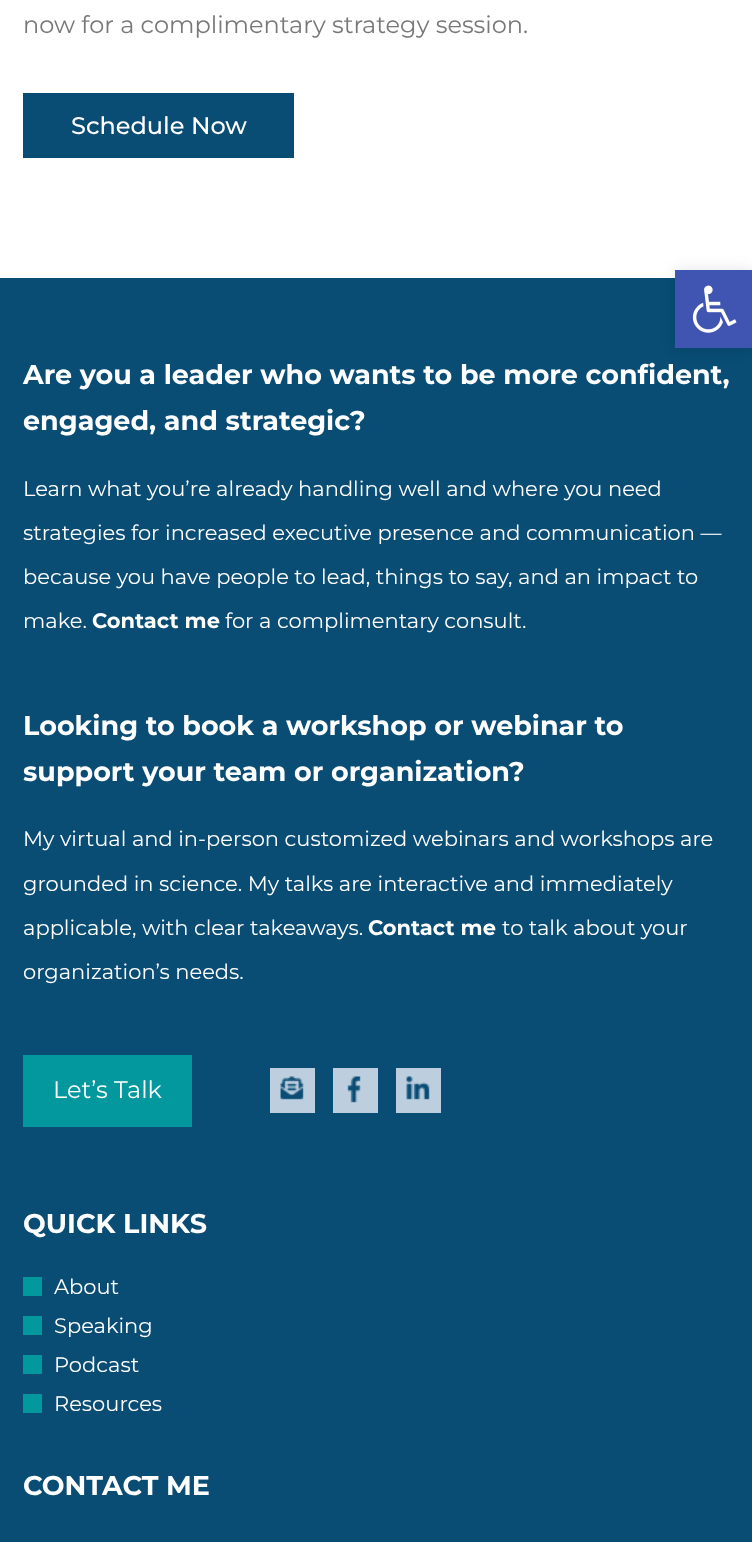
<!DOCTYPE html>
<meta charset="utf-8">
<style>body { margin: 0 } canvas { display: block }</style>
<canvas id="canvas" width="752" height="1542"></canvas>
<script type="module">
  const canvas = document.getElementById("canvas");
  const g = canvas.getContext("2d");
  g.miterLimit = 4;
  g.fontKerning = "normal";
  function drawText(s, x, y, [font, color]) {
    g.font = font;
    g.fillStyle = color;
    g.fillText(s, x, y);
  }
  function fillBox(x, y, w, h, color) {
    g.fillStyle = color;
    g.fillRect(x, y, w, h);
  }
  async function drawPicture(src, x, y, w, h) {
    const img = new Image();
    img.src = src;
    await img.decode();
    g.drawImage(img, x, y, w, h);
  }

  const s1 = ["100 24px Montserrat", "#787878"];
  const s2 = ["100 24px 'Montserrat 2'", "#FFFFFF"];
  const s3 = ["100 27px 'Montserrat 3'", "#FFFFFF"];
  const s4 = ["100 21px Montserrat", "#FFFFFF"];
  const s5 = ["100 21px 'Montserrat 3'", "#FFFFFF"];
  const s6 = ["100 24px Montserrat", "#FFFFFF"];

  fillBox(0, 0, 752, 1542, "#FFFFFF");
  drawText("now for a complimentary strategy session.", 23, 33, s1);
  fillBox(23, 93, 271, 65, "#094C74");
  drawText("Schedule Now", 71, 134, s2);
  fillBox(0, 278, 752, 1264, "#094C74");
  drawText("Are you a leader who wants to be more confident,", 23, 384, s3);
  drawText("engaged, and strategic?", 23, 430, s3);
  drawText("Learn what you’re already handling well and where you need", 23, 496, s4);
  drawText("strategies for increased executive presence and communication —", 23, 540, s4);
  drawText("because you have people to lead, things to say, and an impact to", 23, 584, s4);
  drawText("make.", 23, 628, s4);
  drawText("Contact me", 92, 628, s5);
  drawText("for a complimentary consult.", 225, 628, s4);
  drawText("Looking to book a workshop or webinar to", 23, 735, s3);
  drawText("support your team or organization?", 23, 781, s3);
  drawText("My virtual and in-person customized webinars and workshops are", 23, 846, s4);
  drawText("grounded in science. My talks are interactive and immediately", 23, 891, s4);
  drawText("applicable, with clear takeaways.", 23, 935, s4);
  drawText("Contact me", 368, 935, s5);
  drawText("to talk about your", 502, 935, s4);
  drawText("organization’s needs.", 23, 979, s4);
  fillBox(23, 1055, 169, 72, "#03989E");
  drawText("Let’s Talk", 53, 1098, s6);
  fillBox(270, 1068, 45, 45, "#BDCEDE");
  await drawPicture("pic1.png", 280, 1076, 24, 24);
  fillBox(333, 1068, 45, 45, "#BDCEDE");
  await drawPicture("pic2.png", 347, 1076, 14, 27);
  fillBox(396, 1068, 45, 45, "#BDCEDE");
  await drawPicture("pic3.png", 406, 1076, 24, 24);
  drawText("QUICK LINKS", 23, 1233, s3);
  fillBox(23, 1277, 19, 19, "#03989E");
  drawText("About", 54, 1294, s4);
  fillBox(23, 1316, 19, 19, "#03989E");
  drawText("Speaking", 54, 1333, s4);
  fillBox(23, 1355, 19, 19, "#03989E");
  drawText("Podcast", 54, 1372, s4);
  fillBox(23, 1394, 19, 19, "#03989E");
  drawText("Resources", 54, 1411, s4);
  drawText("CONTACT ME", 23, 1495, s3);
  g.fillStyle = "rgba(0, 0, 0, 0.1)";
  g.filter = "blur(7.5px)";
  g.beginPath();
  g.rect(675, 270, 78, 78);
  g.fill();
  g.filter = "none";
  fillBox(675, 270, 77, 78, "#4054B2");
  await drawPicture("pic4.png", 692, 285, 45, 48);
</script>
